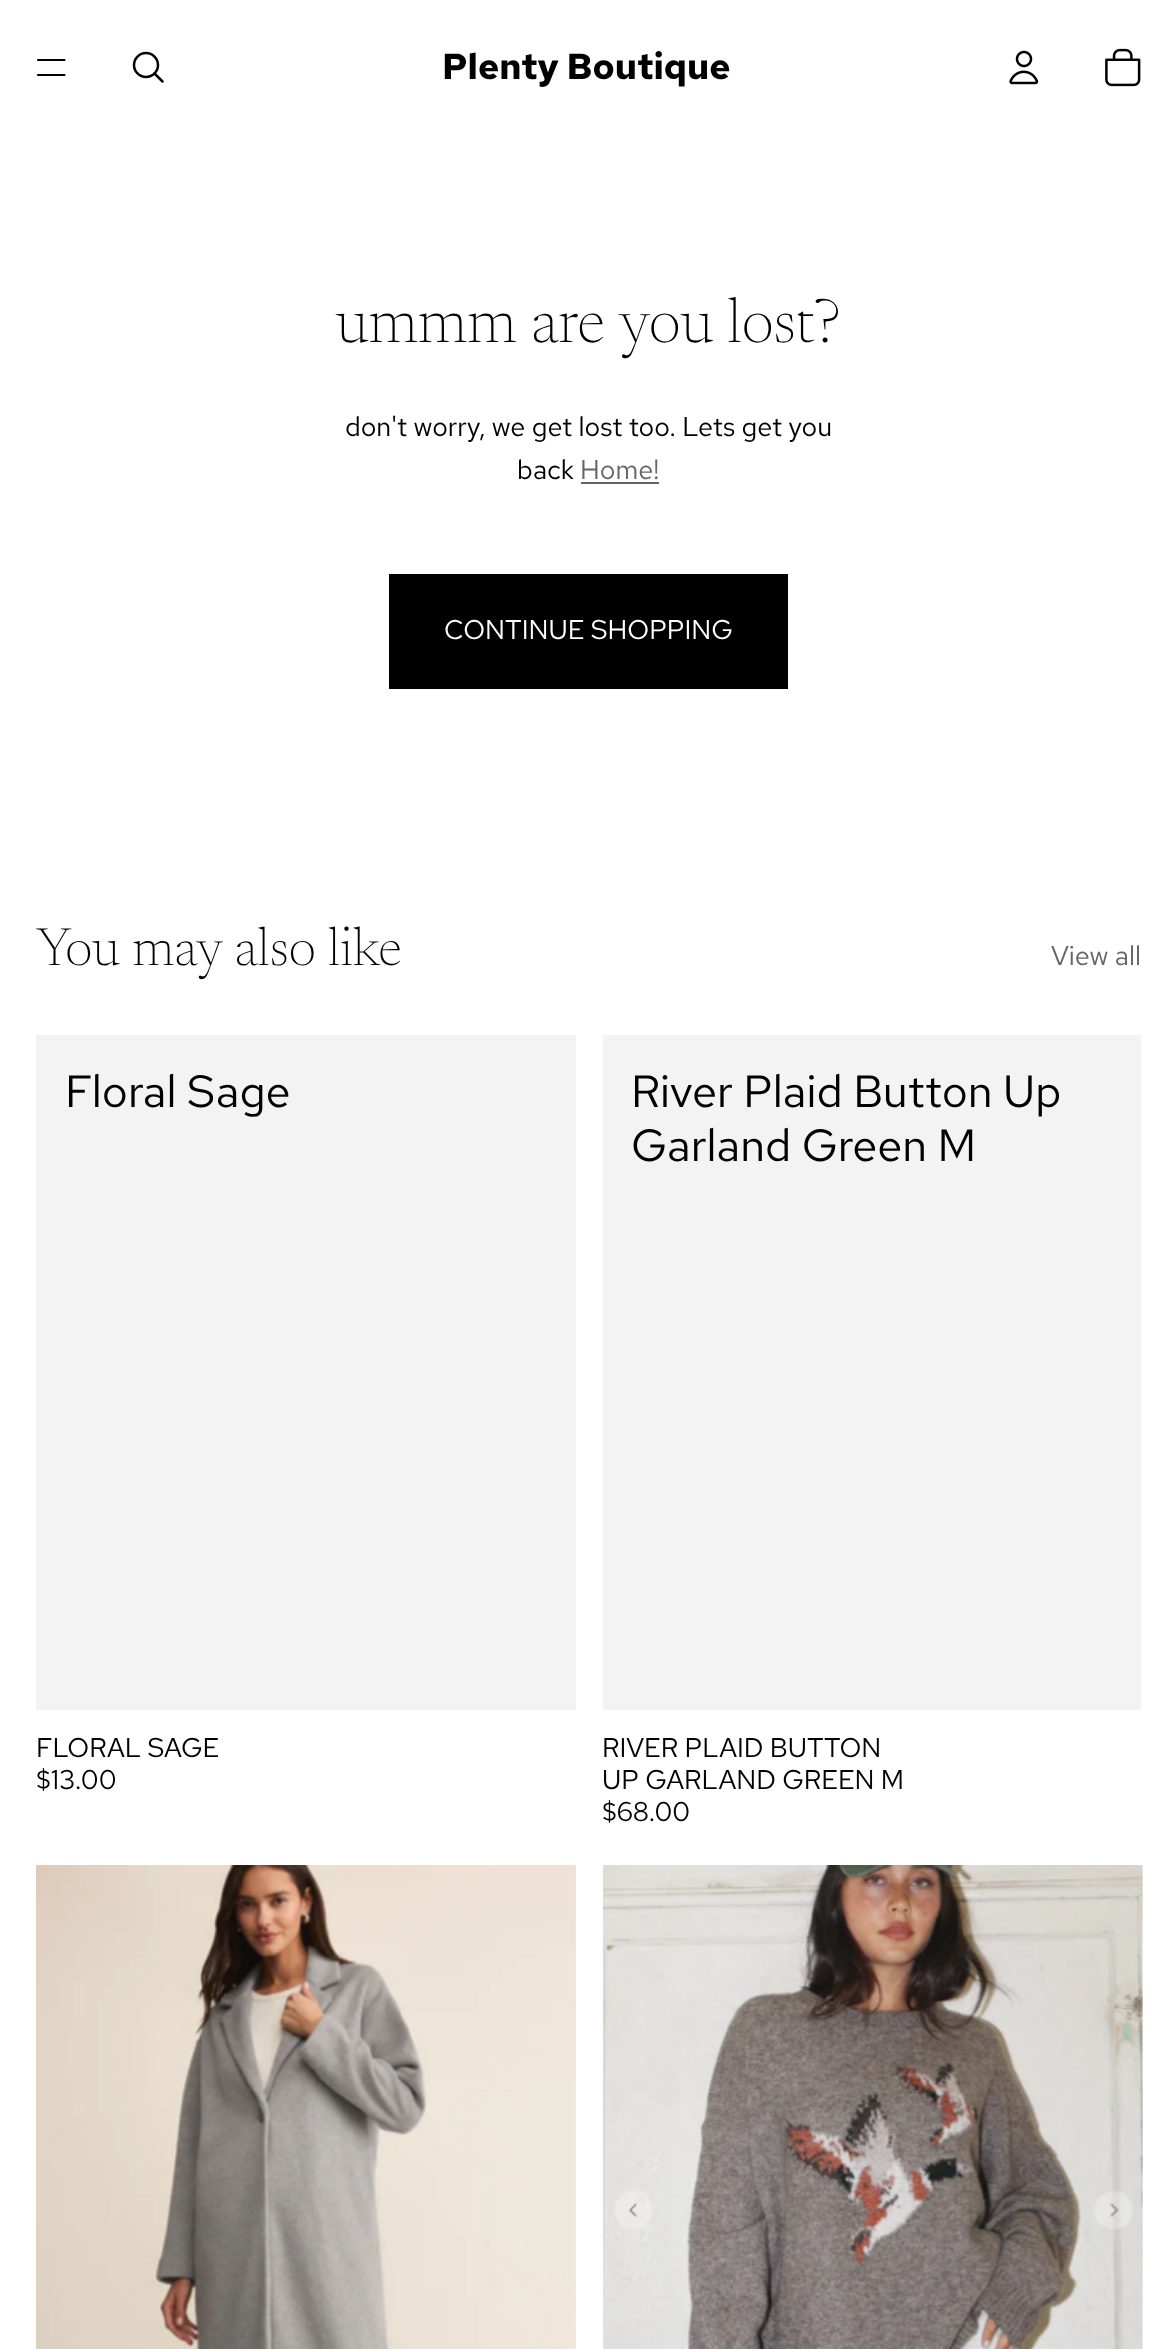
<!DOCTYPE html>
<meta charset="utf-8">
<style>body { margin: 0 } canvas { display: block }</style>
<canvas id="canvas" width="1176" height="2349"></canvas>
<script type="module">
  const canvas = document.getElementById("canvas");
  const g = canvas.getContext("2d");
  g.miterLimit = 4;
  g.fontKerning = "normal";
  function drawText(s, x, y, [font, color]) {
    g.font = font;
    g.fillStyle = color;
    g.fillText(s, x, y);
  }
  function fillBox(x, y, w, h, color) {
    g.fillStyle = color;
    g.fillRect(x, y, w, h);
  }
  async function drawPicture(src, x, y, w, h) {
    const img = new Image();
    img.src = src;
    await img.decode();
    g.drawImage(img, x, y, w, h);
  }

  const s1 = ["bold 36px Red Hat Text", "#000000"];
  const s2 = ["200 63px Newsreader", "#000000"];
  const s3 = ["27px Red Hat Text", "#000000"];
  const s4 = ["27px Red Hat Text", "#666666"];
  const s5 = ["27px Red Hat Text", "#FFFFFF"];
  const s6 = ["200 54px 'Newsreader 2'", "#000000"];
  const s7 = ["45px Red Hat Text", "#000000"];

  fillBox(0, 0, 1176, 2349, "#FFFFFF");
  g.beginPath();
  g.moveTo(38, 60);
  g.lineTo(64.5, 60);
  g.moveTo(38, 75);
  g.lineTo(64.5, 75);
  g.strokeStyle = "#000000";
  g.lineWidth = 2.2;
  g.lineCap = "round";
  g.stroke();
  g.beginPath();
  g.arc(146, 65, 12, 0, Math.PI * 2);
  g.lineWidth = 2.5;
  g.stroke();
  g.beginPath();
  g.moveTo(154.5, 73.5);
  g.lineTo(162.5, 81.5);
  g.lineJoin = "round";
  g.stroke();
  drawText("Plenty Boutique", 442, 79, s1);
  await drawPicture("pic1.png", 1009, 50, 30, 35);
  await drawPicture("pic2.png", 1105, 48, 36, 39);
  drawText("ummm are you lost?", 336, 342, s2);
  drawText("don't worry, we get lost too. Lets get you", 345, 436, s3);
  drawText("back", 517, 479, s3);
  drawText("Home!", 580, 479, s4);
  fillBox(581, 482, 78, 2, "#666666");
  fillBox(389, 574, 399, 115, "#000000");
  drawText("CONTINUE SHOPPING", 444, 639, s5);
  drawText("You may also like", 36, 965, s6);
  drawText("View all", 1051, 965, s4);
  fillBox(36, 1035, 540, 675, "#F3F3F3");
  drawText("Floral Sage", 65, 1107, s7);
  drawText("FLORAL SAGE", 36, 1757, s3);
  drawText("$13.00", 36, 1789, s3);
  fillBox(603, 1035, 538, 675, "#F3F3F3");
  drawText("River Plaid Button Up", 631, 1107, s7);
  drawText("Garland Green M", 631, 1161, s7);
  drawText("RIVER PLAID BUTTON", 602, 1757, s3);
  drawText("UP GARLAND GREEN M", 602, 1789, s3);
  drawText("$68.00", 602, 1821, s3);
  await drawPicture("pic3.png", 36, 1865, 540, 484);
  await drawPicture("pic4.png", 603, 1865, 540, 484);
</script>
